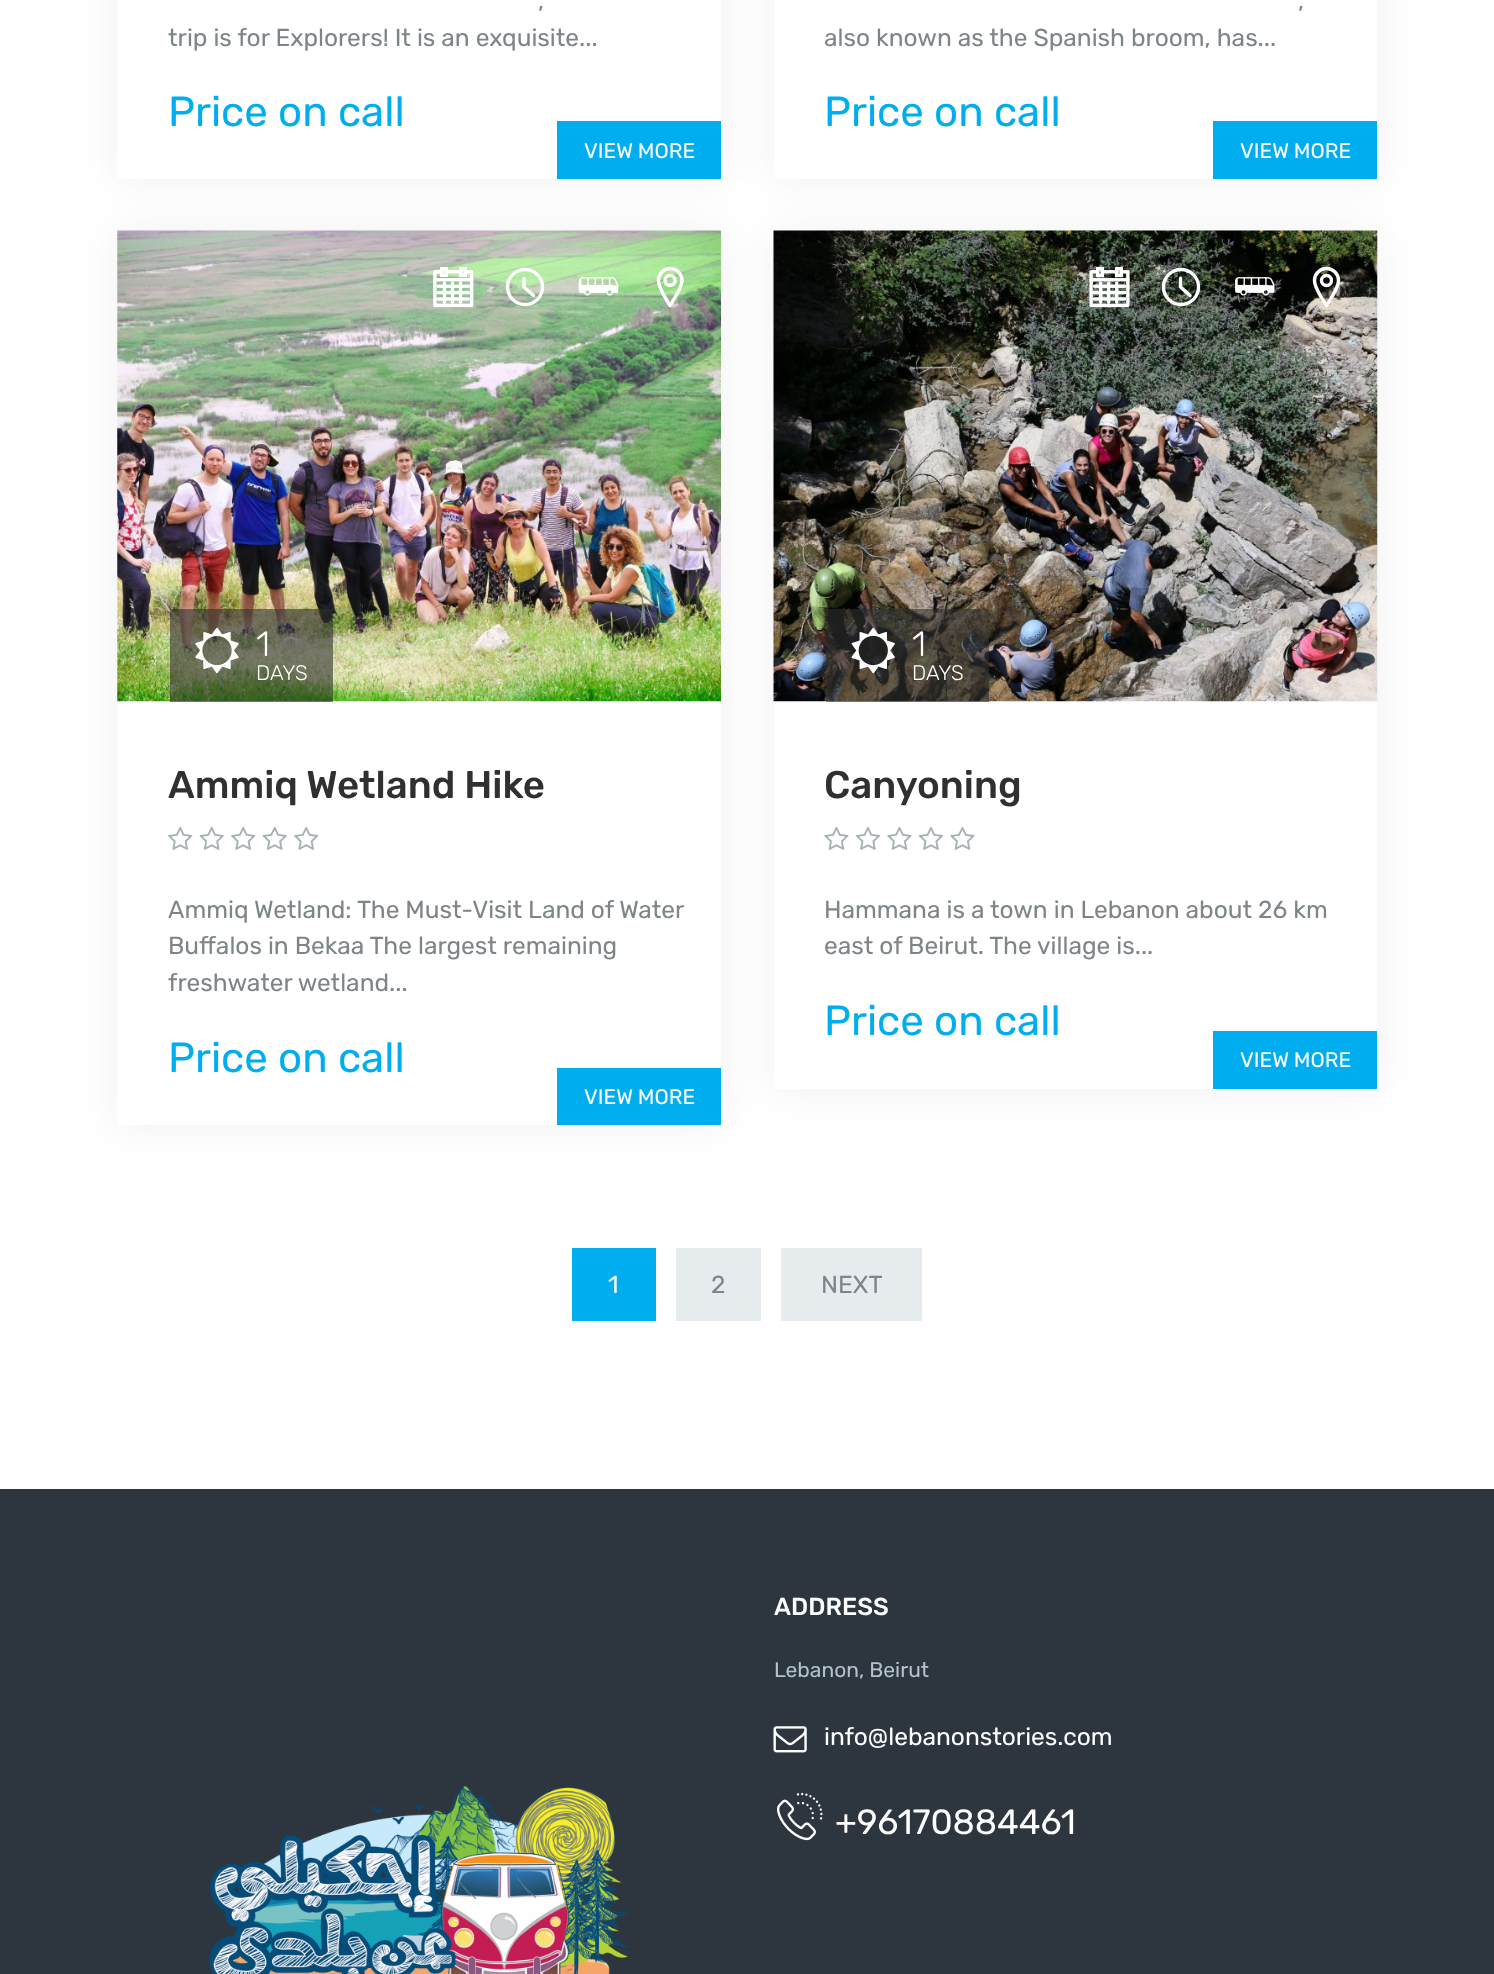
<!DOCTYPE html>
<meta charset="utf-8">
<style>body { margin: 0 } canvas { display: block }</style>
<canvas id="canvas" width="1494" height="1974"></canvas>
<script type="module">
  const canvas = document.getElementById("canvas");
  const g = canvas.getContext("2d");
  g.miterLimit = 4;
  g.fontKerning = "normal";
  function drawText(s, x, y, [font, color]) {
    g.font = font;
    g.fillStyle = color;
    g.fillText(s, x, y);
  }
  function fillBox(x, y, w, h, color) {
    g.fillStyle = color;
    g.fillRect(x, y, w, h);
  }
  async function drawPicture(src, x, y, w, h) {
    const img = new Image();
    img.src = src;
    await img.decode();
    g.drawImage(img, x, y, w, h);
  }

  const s1 = ["24.5px Rubik", "#7E8588"];
  const s2 = ["42px Rubik", "#00AEEF"];
  const s3 = ["21px Rubik", "#FFFFFF"];
  const s4 = ["300 35px Rubik", "#FFFFFF"];
  const s5 = ["300 21px Rubik", "#FFFFFF"];
  const s6 = ["500 38.5px Rubik", "#2E3031"];
  const s7 = ["24.5px Rubik", "#FFFFFF"];
  const s8 = ["500 24.5px Rubik", "#FFFFFF"];
  const s9 = ["21px Rubik", "#B2C3CB"];
  const s10 = ["35px Rubik", "#FFFFFF"];

  fillBox(0, 0, 1494, 1974, "#FFFFFF");
  g.fillStyle = "rgba(0, 0, 0, 0.06)";
  g.filter = "blur(21px)";
  g.beginPath();
  g.rect(117, -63, 604, 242);
  g.fill();
  g.filter = "none";
  fillBox(117, 0, 604, 179, "#FFFFFF");
  drawText(",", 538, 9, s1);
  drawText("trip is for Explorers! It is an exquisite...", 168, 46, s1);
  drawText("Price on call", 168, 126, s2);
  fillBox(557, 121, 164, 58, "#00AEEF");
  drawText("VIEW MORE", 584, 158, s3);
  g.fillStyle = "rgba(0, 0, 0, 0.06)";
  g.filter = "blur(21px)";
  g.beginPath();
  g.rect(774, -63, 603, 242);
  g.fill();
  g.filter = "none";
  fillBox(774, 0, 603, 179, "#FFFFFF");
  drawText(",", 1298, 9, s1);
  drawText("also known as the Spanish broom, has...", 824, 46, s1);
  drawText("Price on call", 824, 126, s2);
  fillBox(1213, 121, 164, 58, "#00AEEF");
  drawText("VIEW MORE", 1240, 158, s3);
  g.fillStyle = "rgba(0, 0, 0, 0.06)";
  g.filter = "blur(21px)";
  g.beginPath();
  g.rect(117, 231, 604, 894);
  g.fill();
  g.filter = "none";
  fillBox(117, 231, 604, 894, "#FFFFFF");
  await drawPicture("pic1.png", 117, 230, 604, 472);
  await drawPicture("pic2.png", 433, 267, 41, 41);
  g.beginPath();
  g.arc(525, 287, 17.5, 0, Math.PI * 2);
  g.strokeStyle = "#FFFFFF";
  g.lineWidth = 3.4;
  g.stroke();
  g.beginPath();
  g.moveTo(682, 280.5);
  g.bezierCurveTo(682, 287, 670, 305.5, 670, 305.5);
  g.bezierCurveTo(670, 305.5, 658.5, 287.5, 658.5, 280.5);
  g.bezierCurveTo(658.5, 274, 663.5, 268.5, 670, 268.5);
  g.bezierCurveTo(677, 268.5, 682, 274, 682, 280.5);
  g.closePath();
  g.lineCap = "round";
  g.lineJoin = "round";
  g.stroke();
  g.beginPath();
  g.moveTo(524, 278.5);
  g.lineTo(524, 287);
  g.lineTo(533.5, 295.5);
  g.stroke();
  await drawPicture("pic3.png", 578, 277, 41, 19);
  g.beginPath();
  g.arc(670, 280.5, 5, 0, Math.PI * 2);
  g.stroke();
  fillBox(170, 609, 163, 93, "rgba(46, 48, 49, 0.6)");
  await drawPicture("pic4.png", 195, 627, 44, 47);
  drawText("1", 256, 656, s4);
  drawText("DAYS", 256, 680, s5);
  drawText("Ammiq Wetland Hike", 168, 798, s6);
  await drawPicture("pic5.png", 168, 826, 25, 24);
  await drawPicture("pic6.png", 199, 826, 25, 24);
  await drawPicture("pic5.png", 231, 826, 25, 24);
  await drawPicture("pic6.png", 262, 826, 25, 24);
  await drawPicture("pic5.png", 294, 826, 25, 24);
  drawText("Ammiq Wetland: The Must-Visit Land of Water", 168, 918, s1);
  drawText("Buffalos in Bekaa The largest remaining", 168, 954, s1);
  drawText("freshwater wetland...", 168, 991, s1);
  drawText("Price on call", 168, 1072, s2);
  fillBox(557, 1068, 164, 57, "#00AEEF");
  drawText("VIEW MORE", 584, 1104, s3);
  g.fillStyle = "rgba(0, 0, 0, 0.06)";
  g.filter = "blur(21px)";
  g.beginPath();
  g.rect(774, 231, 603, 858);
  g.fill();
  g.filter = "none";
  fillBox(774, 701, 603, 388, "#FFFFFF");
  await drawPicture("pic7.png", 773, 230, 605, 472);
  await drawPicture("pic8.png", 1089, 267, 41, 41);
  g.beginPath();
  g.arc(1181, 287, 17.5, 0, Math.PI * 2);
  g.stroke();
  g.beginPath();
  g.moveTo(1338.5, 280.5);
  g.bezierCurveTo(1338.5, 287, 1326.5, 305.5, 1326.5, 305.5);
  g.bezierCurveTo(1326.5, 305.5, 1314.5, 287.5, 1314.5, 280.5);
  g.bezierCurveTo(1314.5, 274, 1320, 268.5, 1326.5, 268.5);
  g.bezierCurveTo(1333, 268.5, 1338.5, 274, 1338.5, 280.5);
  g.closePath();
  g.stroke();
  g.beginPath();
  g.moveTo(1180.5, 278.5);
  g.lineTo(1180.5, 287);
  g.lineTo(1190, 295.5);
  g.stroke();
  await drawPicture("pic9.png", 1235, 277, 40, 19);
  g.beginPath();
  g.arc(1326.5, 280.5, 5, 0, Math.PI * 2);
  g.stroke();
  fillBox(826, 609, 163, 93, "rgba(46, 48, 49, 0.6)");
  await drawPicture("pic10.png", 851, 627, 44, 47);
  drawText("1", 912, 656, s4);
  drawText("DAYS", 912, 680, s5);
  drawText("Canyoning", 824, 798, s6);
  await drawPicture("pic11.png", 824, 826, 25, 24);
  await drawPicture("pic12.png", 855, 826, 26, 24);
  await drawPicture("pic11.png", 887, 826, 25, 24);
  await drawPicture("pic12.png", 918, 826, 26, 24);
  await drawPicture("pic11.png", 950, 826, 25, 24);
  drawText("Hammana is a town in Lebanon about 26 km", 824, 918, s1);
  drawText("east of Beirut. The village is...", 824, 954, s1);
  drawText("Price on call", 824, 1035, s2);
  fillBox(1213, 1031, 164, 58, "#00AEEF");
  drawText("VIEW MORE", 1240, 1067, s3);
  fillBox(572, 1248, 84, 73, "#00AEEF");
  drawText("1", 608, 1293, s7);
  fillBox(676, 1248, 85, 73, "#E6EBEE");
  drawText("2", 711, 1293, s1);
  fillBox(781, 1248, 141, 73, "#E6EBEE");
  drawText("NEXT", 821, 1293, s1);
  fillBox(0, 1489, 1494, 485, "#2D363F");
  drawText("ADDRESS", 774, 1615, s8);
  drawText("Lebanon, Beirut", 774, 1677, s9);
  await drawPicture("pic13.png", 773, 1726, 34, 27);
  drawText("info@lebanonstories.com", 824, 1745, s7);
  await drawPicture("pic14.png", 777, 1792, 46, 49);
  drawText("+96170884461", 835, 1834, s10);
  await drawPicture("pic15.png", 209, 1786, 420, 188);
</script>
